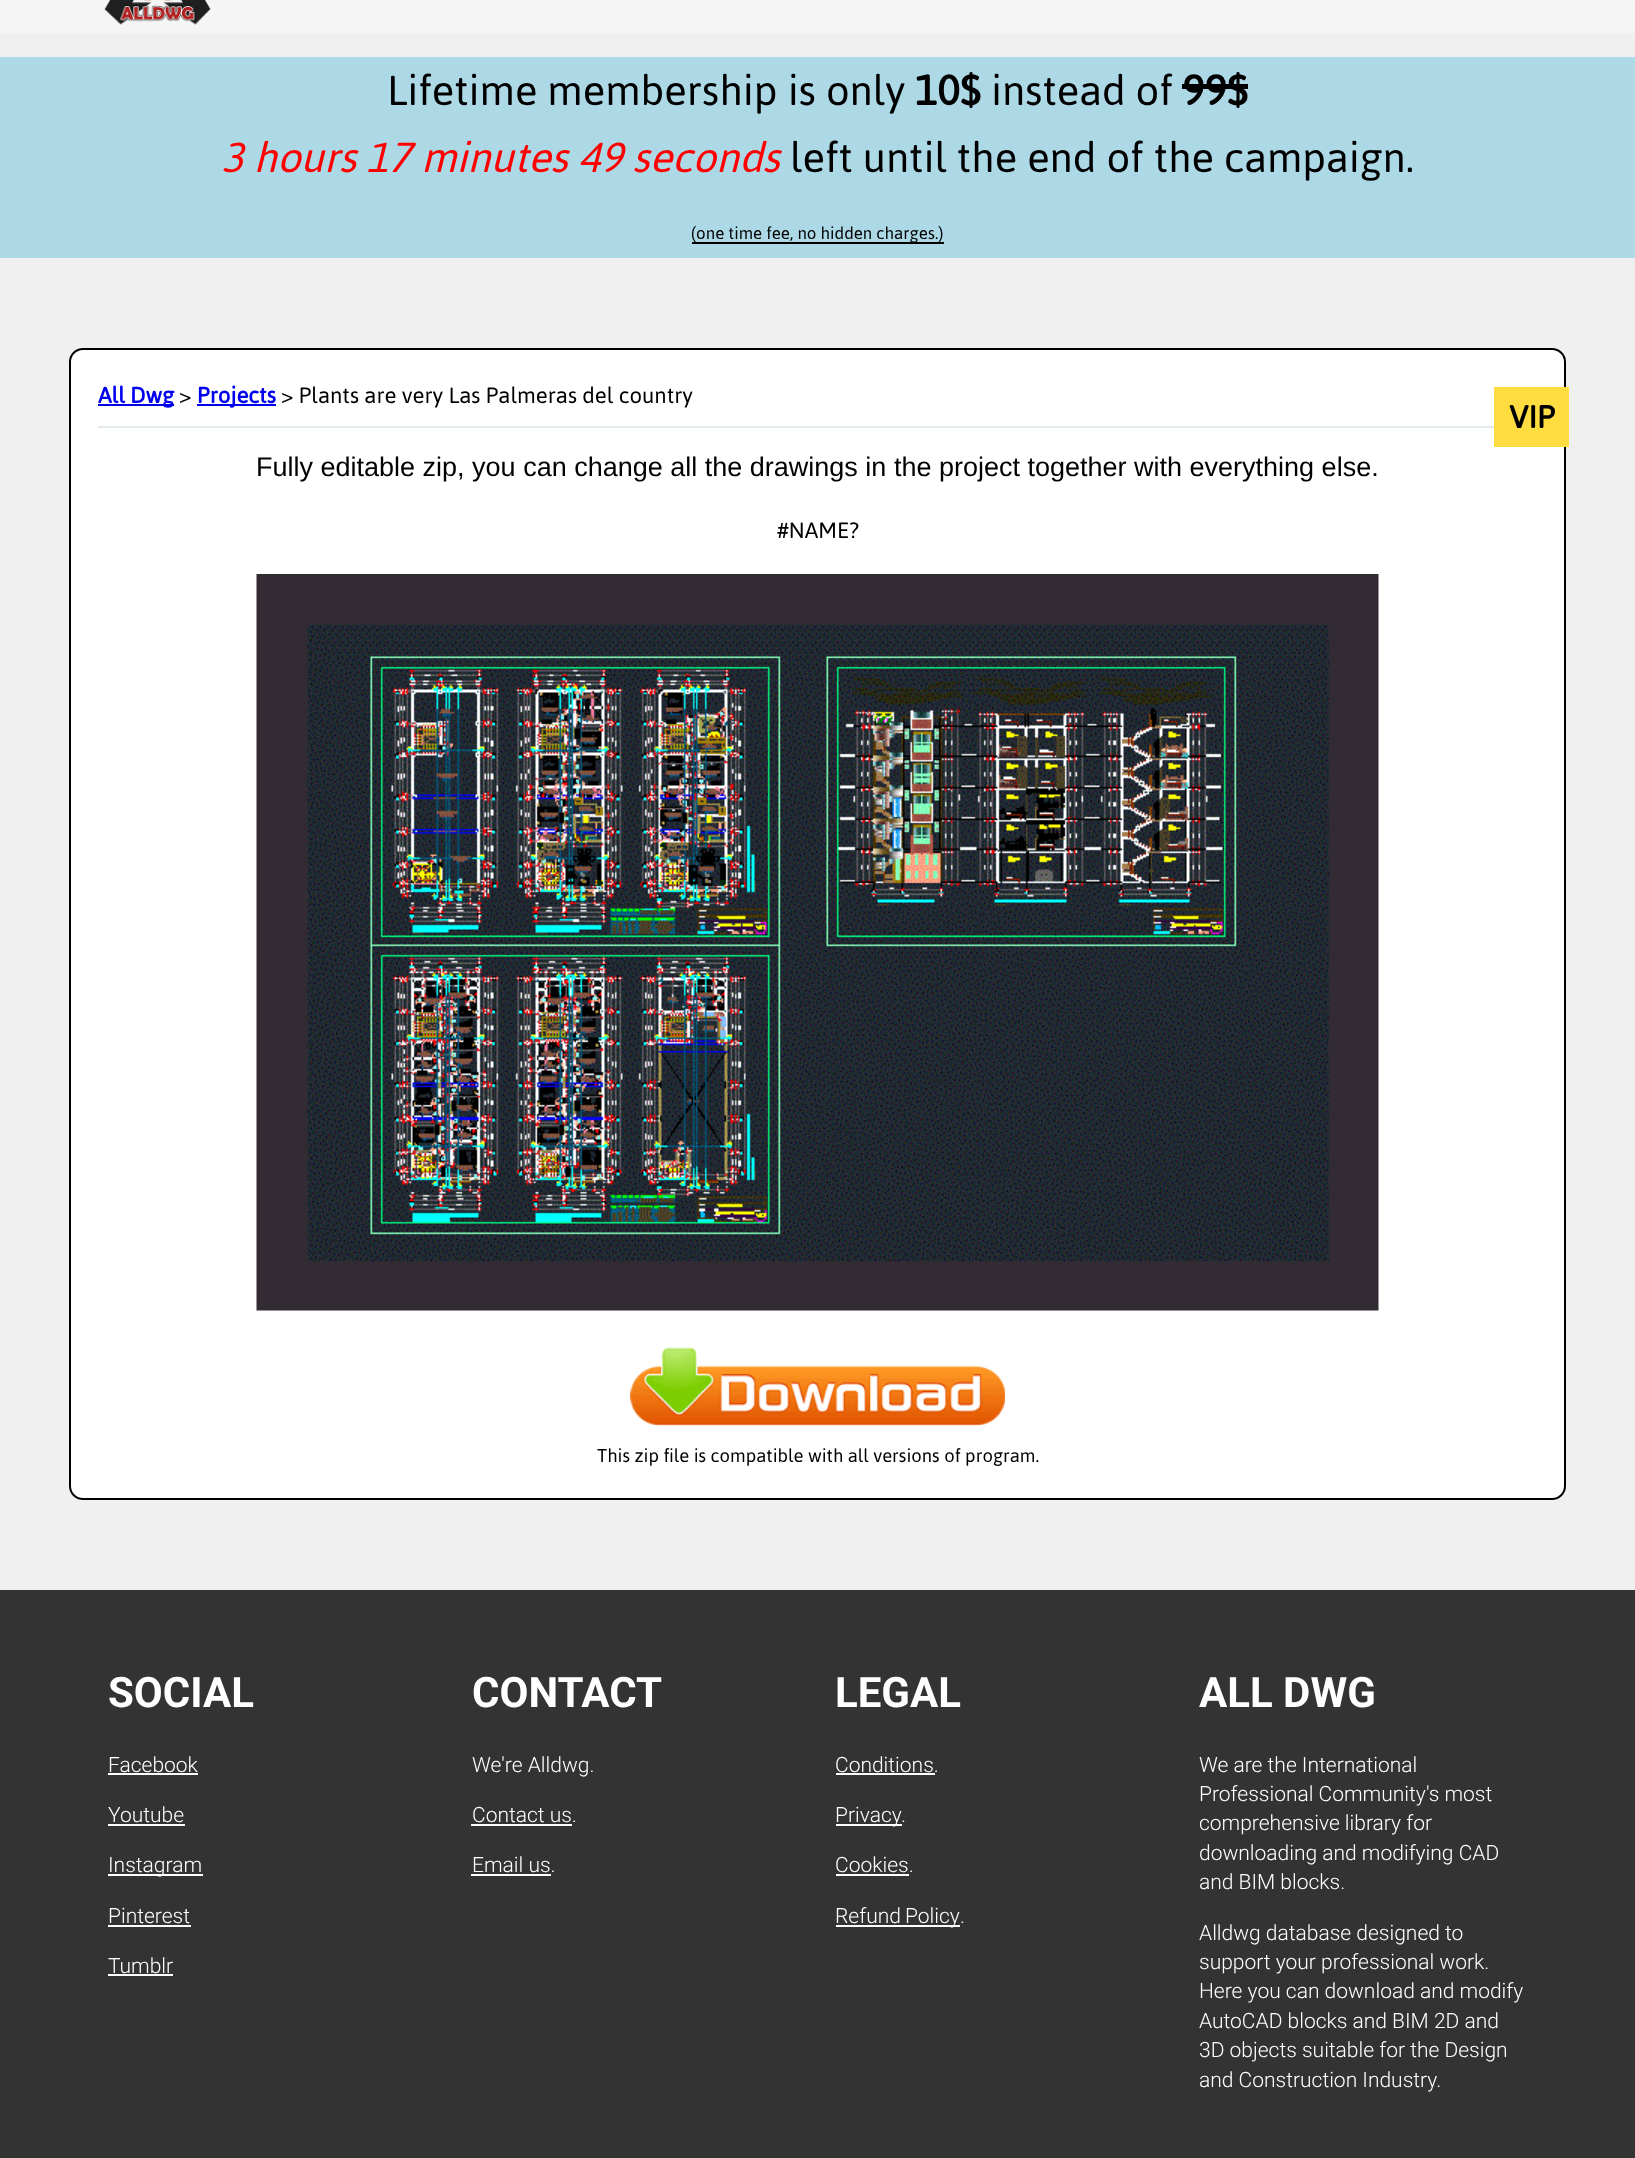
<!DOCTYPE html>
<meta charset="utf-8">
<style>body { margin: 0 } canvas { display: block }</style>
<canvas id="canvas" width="1635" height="2158"></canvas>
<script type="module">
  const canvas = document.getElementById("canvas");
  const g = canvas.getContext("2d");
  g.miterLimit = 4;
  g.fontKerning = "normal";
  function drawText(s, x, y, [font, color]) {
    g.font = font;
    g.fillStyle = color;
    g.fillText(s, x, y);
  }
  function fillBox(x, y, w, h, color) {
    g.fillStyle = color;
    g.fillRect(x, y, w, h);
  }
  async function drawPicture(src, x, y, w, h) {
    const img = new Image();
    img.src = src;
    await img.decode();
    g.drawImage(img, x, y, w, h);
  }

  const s1 = ["48px Jaldi", "#000000"];
  const s2 = ["bold 48px Jaldi", "#000000"];
  const s3 = ["italic 48px Jaldi", "#FF0000"];
  const s4 = ["19.5px Jaldi", "#000000"];
  const s5 = ["bold 25.5px Jaldi", "#0000EE"];
  const s6 = ["25.5px Jaldi", "#000000"];
  const s7 = ["bold 36px Jaldi", "#000000"];
  const s8 = ["27px Liberation Sans", "#000000"];
  const s9 = ["21.25px Jaldi", "#000000"];
  const s10 = ["bold 42px Roboto", "#FFFFFF"];
  const s11 = ["300 21px Roboto", "#FFFFFF"];

  fillBox(0, 0, 1635, 2158, "#F0F0F0");
  fillBox(0, 0, 1635, 33, "#F5F5F5");
  await drawPicture("pic1.png", 104, 0, 107, 25);
  fillBox(0, 57, 1635, 201, "#ADD8E6");
  drawText("Lifetime membership is only", 387, 105, s1);
  drawText("10$", 915, 105, s2);
  drawText("instead of", 991, 105, s1);
  drawText("99$", 1182, 105, s2);
  fillBox(1182, 84, 66, 5, "#000000");
  drawText("3 hours 17 minutes 49 seconds", 221, 172, s3);
  drawText("left until the end of the campaign.", 790, 172, s1);
  fillBox(692, 242, 252, 2, "#000000");
  drawText("(one time fee, no hidden charges.)", 691, 239, s4);
  g.fillStyle = "#FFFFFF";
  g.beginPath();
  g.roundRect(70, 349, 1495, 1150, 13);
  g.fill();
  g.strokeStyle = "#000000";
  g.lineWidth = 2;
  g.stroke();
  fillBox(98, 404, 76, 2, "#0000EE");
  drawText("All Dwg", 98, 403, s5);
  drawText(">", 179, 403, s6);
  fillBox(197, 404, 79, 2, "#0000EE");
  drawText("Projects", 197, 403, s5);
  drawText("> Plants are very Las Palmeras del country", 281, 403, s6);
  fillBox(98, 426, 1396, 2, "#E3EBEE");
  fillBox(1494, 387, 75, 60, "#FFDC40");
  drawText("VIP", 1509, 428, s7);
  drawText("Fully editable zip, you can change all the drawings in the project together with everything else.", 256, 476, s8);
  drawText("#NAME?", 777, 538, s6);
  await drawPicture("pic2.png", 256, 574, 1123, 737);
  await drawPicture("pic3.png", 630, 1347, 375, 79);
  drawText("This zip file is compatible with all versions of program.", 597, 1462, s9);
  fillBox(0, 1590, 1635, 568, "#333333");
  drawText("SOCIAL", 108, 1707, s10);
  drawText("Facebook", 108, 1772, s11);
  fillBox(108, 1773, 90, 2, "#FFFFFF");
  drawText("Youtube", 108, 1822, s11);
  fillBox(108, 1824, 77, 2, "#FFFFFF");
  fillBox(108, 1874, 95, 2, "#FFFFFF");
  drawText("Instagram", 108, 1872, s11);
  drawText("Pinterest", 108, 1923, s11);
  fillBox(108, 1925, 83, 2, "#FFFFFF");
  drawText("Tumblr", 108, 1973, s11);
  fillBox(108, 1974, 65, 2, "#FFFFFF");
  drawText("CONTACT", 472, 1707, s10);
  drawText("We're Alldwg.", 472, 1772, s11);
  drawText("Contact us.", 472, 1822, s11);
  fillBox(471, 1824, 101, 2, "#FFFFFF");
  drawText("Email us.", 472, 1872, s11);
  fillBox(471, 1874, 80, 2, "#FFFFFF");
  drawText("LEGAL", 835, 1707, s10);
  drawText("Conditions.", 835, 1772, s11);
  fillBox(836, 1773, 99, 2, "#FFFFFF");
  fillBox(836, 1824, 66, 2, "#FFFFFF");
  drawText("Privacy", 835, 1822, s11);
  drawText(".", 901, 1822, s11);
  drawText("Cookies.", 835, 1872, s11);
  fillBox(836, 1874, 73, 2, "#FFFFFF");
  fillBox(836, 1925, 124, 2, "#FFFFFF");
  g.wordSpacing = "-1px";
  drawText("Refund Policy", 835, 1923, s11);
  g.wordSpacing = "0px";
  drawText(".", 960, 1923, s11);
  drawText("ALL DWG", 1199, 1707, s10);
  drawText("We are the International", 1199, 1772, s11);
  drawText("Professional Community's most", 1199, 1801, s11);
  drawText("comprehensive library for", 1199, 1830, s11);
  drawText("downloading and modifying CAD", 1199, 1860, s11);
  drawText("and BIM blocks.", 1199, 1889, s11);
  drawText("Alldwg database designed to", 1199, 1940, s11);
  drawText("support your professional work.", 1199, 1969, s11);
  drawText("Here you can download and modify", 1199, 1998, s11);
  drawText("AutoCAD blocks and BIM 2D and", 1199, 2028, s11);
  drawText("3D objects suitable for the Design", 1199, 2057, s11);
  drawText("and Construction Industry.", 1199, 2087, s11);
</script>
